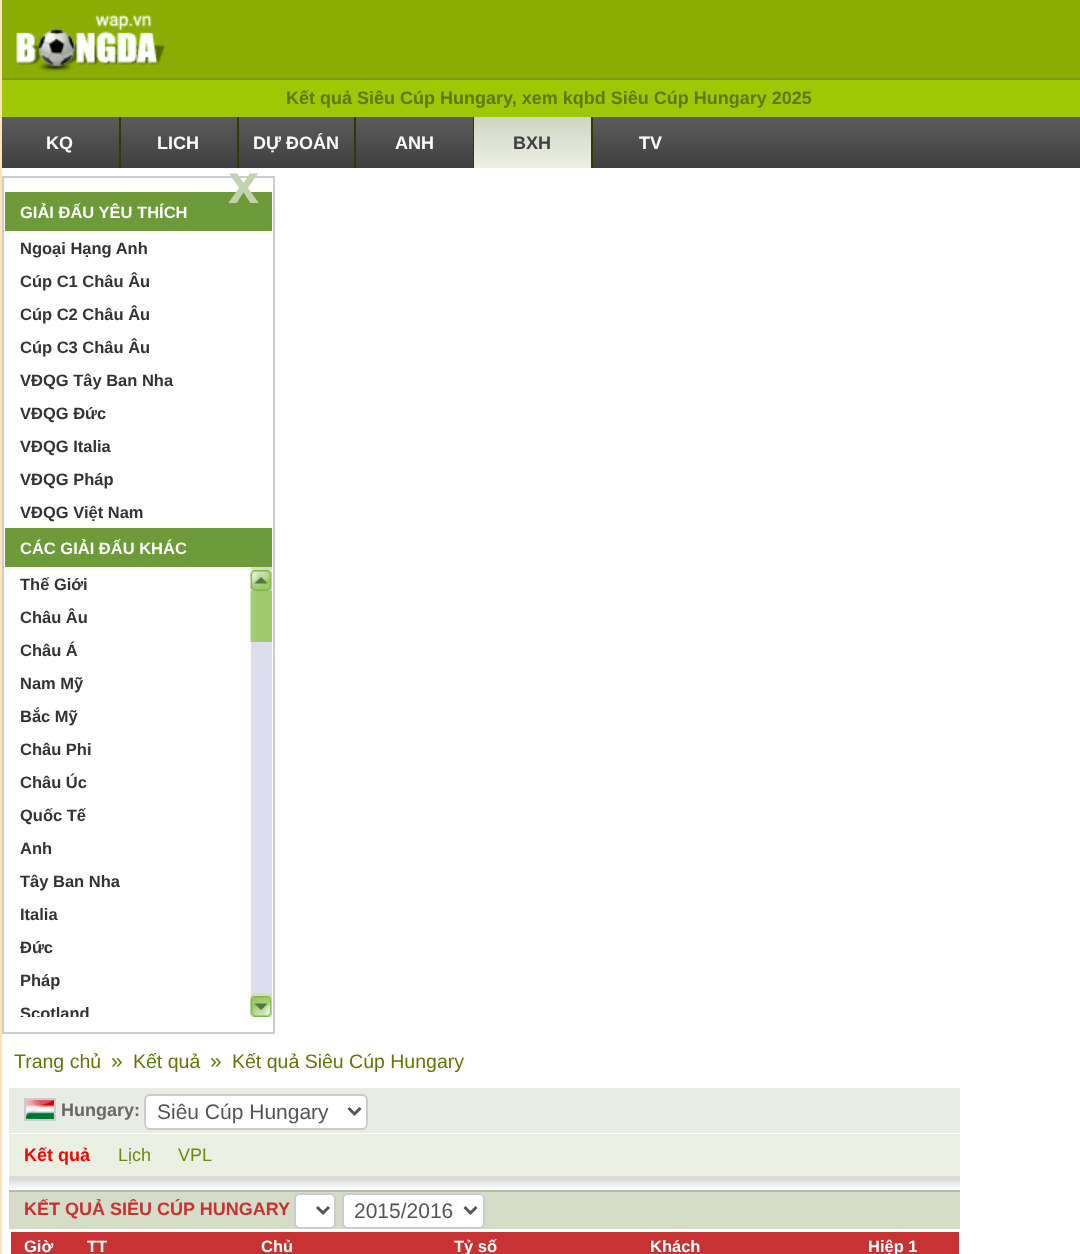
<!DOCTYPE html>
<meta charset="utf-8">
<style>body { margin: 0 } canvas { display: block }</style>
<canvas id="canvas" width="1080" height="1254"></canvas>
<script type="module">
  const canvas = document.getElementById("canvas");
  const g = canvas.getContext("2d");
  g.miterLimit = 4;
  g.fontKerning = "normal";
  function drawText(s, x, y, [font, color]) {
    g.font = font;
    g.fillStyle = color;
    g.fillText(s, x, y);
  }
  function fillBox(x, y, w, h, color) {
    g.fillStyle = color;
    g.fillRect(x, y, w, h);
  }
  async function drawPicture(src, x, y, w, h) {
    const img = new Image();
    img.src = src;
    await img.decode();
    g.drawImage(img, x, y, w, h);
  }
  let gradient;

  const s1 = ["bold 18px Liberation Sans", "#5F7806"];
  const s2 = ["bold 18px Liberation Sans", "#FFFFFF"];
  const s3 = ["bold 18px Liberation Sans", "#414041"];
  const s4 = ["bold 56px Liberation Sans", "#C1D3AC"];
  const s5 = ["bold 16.5px Liberation Sans", "#FFFFFF"];
  const s6 = ["bold 16.5px Liberation Sans", "#333333"];
  const s7 = ["19.5px Liberation Sans", "#5F7806"];
  const s8 = ["21px Liberation Sans", "#5F7806"];
  const s9 = ["bold 18px Liberation Sans", "#686868"];
  const s10 = ["21px Liberation Sans", "#555555"];
  const s11 = ["bold 18px Liberation Sans", "#FF0000"];
  const s12 = ["18px Liberation Sans", "#6F8811"];
  const s13 = ["bold 18px Liberation Sans", "#C83233"];

  fillBox(0, 0, 1080, 1254, "#FFFFFF");
  fillBox(0, 0, 2, 1254, "#FFE4B5");
  fillBox(2, 0, 1078, 78, "#89AD05");
  await drawPicture("pic1.png", 16, 14, 150, 58);
  fillBox(2, 80, 1078, 37, "#9EC806");
  fillBox(2, 78, 1078, 2, "#7B9B06");
  drawText("Kết quả Siêu Cúp Hungary, xem kqbd Siêu Cúp Hungary 2025", 286, 104, s1);
  gradient = g.createLinearGradient(542, 117, 542, 168);
  gradient.addColorStop(0, "#5C5C5C");
  gradient.addColorStop(1, "#403F40");
  g.fillStyle = gradient;
  g.fillRect(2, 117, 1078, 51);
  fillBox(119, 117, 2, 51, "#2F3A07");
  drawText("KQ", 46, 149, s2);
  fillBox(237, 117, 2, 51, "#2F3A07");
  drawText("LICH", 157, 149, s2);
  fillBox(354, 117, 2, 51, "#2F3A07");
  drawText("DỰ ĐOÁN", 253, 149, s2);
  fillBox(473, 117, 1, 51, "#2F3A07");
  drawText("ANH", 395, 149, s2);
  fillBox(591, 117, 2, 51, "#2F3A07");
  gradient = g.createLinearGradient(533, 117, 533, 168);
  gradient.addColorStop(0, "#CFD5C2");
  gradient.addColorStop(1, "#ECF0E3");
  g.fillStyle = gradient;
  g.fillRect(474, 117, 117, 51);
  drawText("BXH", 513, 149, s3);
  drawText("TV", 639, 149, s2);
  g.strokeStyle = "#CCCCCC";
  g.lineWidth = 2;
  g.strokeRect(3, 177, 271, 856);
  fillBox(5, 192, 267, 39, "#6E9B39");
  drawText("x", 228, 203, s4);
  drawText("GIẢI ĐẤU YÊU THÍCH", 20, 218, s5);
  drawText("Ngoại Hạng Anh", 20, 254, s6);
  drawText("Cúp C1 Châu Âu", 20, 287, s6);
  drawText("Cúp C2 Châu Âu", 20, 320, s6);
  drawText("Cúp C3 Châu Âu", 20, 353, s6);
  drawText("VĐQG Tây Ban Nha", 20, 386, s6);
  drawText("VĐQG Đức", 20, 419, s6);
  drawText("VĐQG Italia", 20, 452, s6);
  drawText("VĐQG Pháp", 20, 485, s6);
  drawText("VĐQG Việt Nam", 20, 518, s6);
  fillBox(5, 528, 267, 39, "#6E9B39");
  drawText("CÁC GIẢI ĐẤU KHÁC", 20, 554, s5);
  drawText("Thế Giới", 20, 590, s6);
  drawText("Châu Âu", 20, 623, s6);
  drawText("Châu Á", 20, 656, s6);
  drawText("Nam Mỹ", 20, 689, s6);
  drawText("Bắc Mỹ", 20, 722, s6);
  drawText("Châu Phi", 20, 755, s6);
  drawText("Châu Úc", 20, 788, s6);
  drawText("Quốc Tế", 20, 821, s6);
  drawText("Anh", 20, 854, s6);
  drawText("Tây Ban Nha", 20, 887, s6);
  drawText("Italia", 20, 920, s6);
  drawText("Đức", 20, 953, s6);
  drawText("Pháp", 20, 986, s6);
  g.save();
  g.beginPath();
  g.rect(5, 567, 267, 450);
  g.clip();
  drawText("Scotland", 20, 1019, s6);
  g.restore();
  fillBox(251, 567, 21, 450, "#D1E1BD");
  await drawPicture("pic2.png", 250, 570, 22, 21);
  fillBox(251, 642, 21, 351, "#DDDDEE");
  fillBox(257, 591, 15, 51, "#9ECA6C");
  await drawPicture("pic3.png", 250, 591, 7, 51);
  await drawPicture("pic4.png", 250, 996, 22, 21);
  drawText("Trang chủ", 14, 1068, s7);
  drawText("»", 111, 1068, s8);
  drawText("Kết quả", 133, 1068, s7);
  drawText("»", 210, 1068, s8);
  drawText("Kết quả Siêu Cúp Hungary", 232, 1068, s7);
  fillBox(9, 1088, 951, 45, "#E9ECE4");
  await drawPicture("pic5.png", 26, 1100, 28, 19);
  g.strokeRect(25, 1099, 30, 21);
  drawText("Hungary:", 61, 1116, s9);
  g.fillStyle = "#FFFFFF";
  g.beginPath();
  g.roundRect(145, 1095, 222, 34, 5);
  g.fill();
  g.stroke();
  g.beginPath();
  g.moveTo(348.5, 1108);
  g.lineTo(354.5, 1114);
  g.lineTo(360.5, 1108);
  g.strokeStyle = "#555555";
  g.lineWidth = 3;
  g.stroke();
  drawText("Siêu Cúp Hungary", 157, 1119, s10);
  fillBox(9, 1134, 951, 42, "#ECF0E3");
  drawText("Kết quả", 24, 1161, s11);
  drawText("Lịch", 118, 1161, s12);
  drawText("VPL", 178, 1161, s12);
  await drawPicture("pic6.png", 9, 1176, 951, 12);
  fillBox(9, 1192, 951, 37, "#D5DCC7");
  fillBox(9, 1190, 951, 2, "#B4BBA8");
  drawText("KẾT QUẢ SIÊU CÚP HUNGARY", 24, 1215, s13);
  g.fillStyle = "#FFFFFF";
  g.beginPath();
  g.roundRect(295, 1194, 40, 34, 5);
  g.fill();
  g.strokeStyle = "#CCCCCC";
  g.lineWidth = 2;
  g.stroke();
  g.beginPath();
  g.moveTo(317, 1207);
  g.lineTo(323, 1213);
  g.lineTo(329, 1207);
  g.strokeStyle = "#555555";
  g.lineWidth = 3;
  g.stroke();
  g.beginPath();
  g.roundRect(343, 1194, 141, 34, 5);
  g.fill();
  g.strokeStyle = "#CCCCCC";
  g.lineWidth = 2;
  g.stroke();
  g.beginPath();
  g.moveTo(464.5, 1207);
  g.lineTo(470.5, 1213);
  g.lineTo(476.5, 1207);
  g.strokeStyle = "#555555";
  g.lineWidth = 3;
  g.stroke();
  drawText("2015/2016", 354, 1218, s10);
  fillBox(11, 1232, 948, 22, "#C83233");
  drawText("Giờ", 24, 1252, s5);
  drawText("TT", 87, 1252, s5);
  drawText("Chủ", 261, 1252, s5);
  drawText("Tỷ số", 454, 1252, s5);
  drawText("Khách", 650, 1252, s5);
  drawText("Hiệp 1", 868, 1252, s5);
</script>
